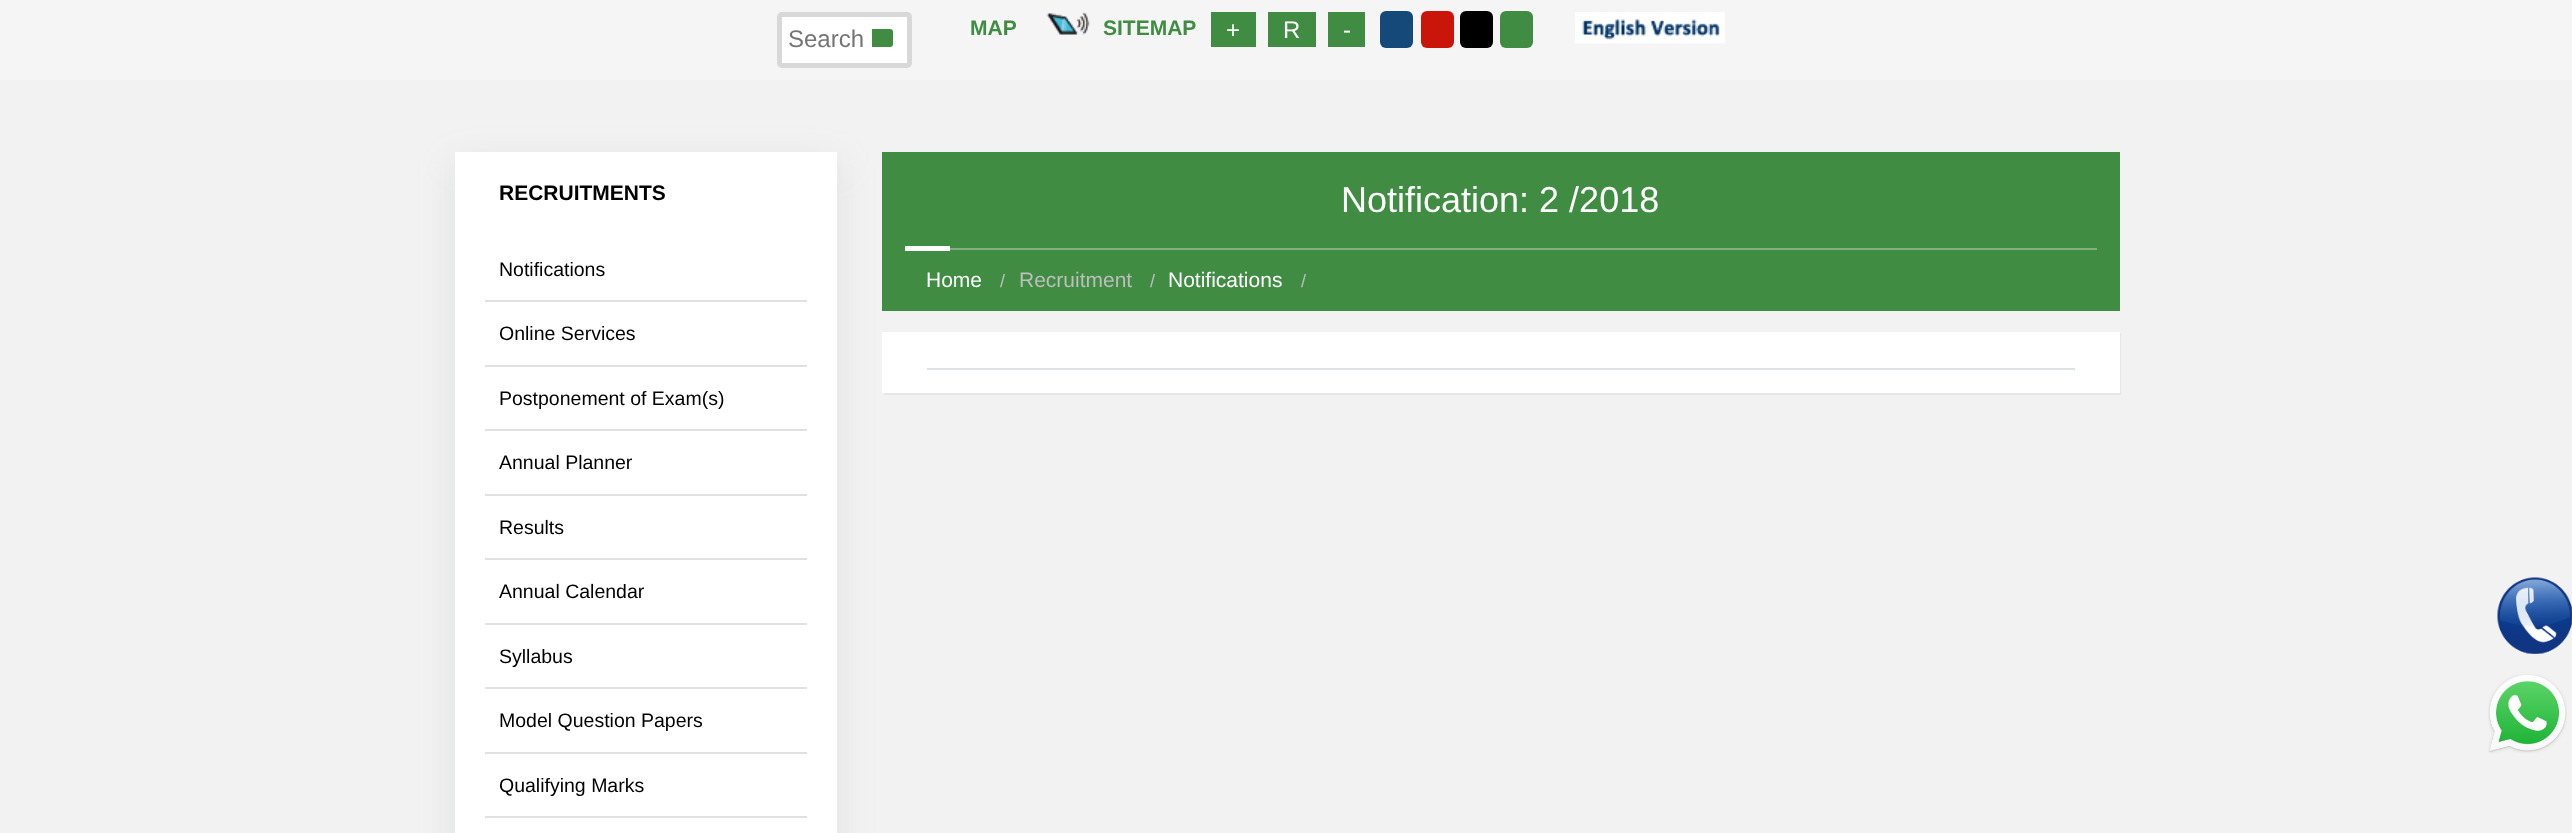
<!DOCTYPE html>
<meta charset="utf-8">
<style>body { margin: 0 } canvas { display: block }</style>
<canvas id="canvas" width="2572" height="833"></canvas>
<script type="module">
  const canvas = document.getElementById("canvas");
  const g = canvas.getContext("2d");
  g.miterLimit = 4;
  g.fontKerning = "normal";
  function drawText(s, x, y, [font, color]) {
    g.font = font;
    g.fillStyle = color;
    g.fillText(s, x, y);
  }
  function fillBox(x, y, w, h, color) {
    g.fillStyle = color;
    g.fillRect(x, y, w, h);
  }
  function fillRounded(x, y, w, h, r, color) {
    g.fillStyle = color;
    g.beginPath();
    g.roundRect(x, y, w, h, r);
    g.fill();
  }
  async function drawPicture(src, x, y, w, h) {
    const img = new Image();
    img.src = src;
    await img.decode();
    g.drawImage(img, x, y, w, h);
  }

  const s1 = ["24px Liberation Sans", "#757575"];
  const s2 = ["bold 21px Liberation Sans", "#3F8C42"];
  const s3 = ["24px Liberation Sans", "#FFFFFF"];
  const s4 = ["bold 21px Liberation Sans", "#000000"];
  const s5 = ["19.5px Liberation Sans", "#000000"];
  const s6 = ["36px Liberation Sans", "#FFFFFF"];
  const s7 = ["21px Liberation Sans", "#FFFFFF"];
  const s8 = ["18px Liberation Sans", "#BEBEBE"];
  const s9 = ["21px Liberation Sans", "#BEBEBE"];

  fillBox(0, 0, 2572, 833, "#F5F5F5");
  g.fillStyle = "#FFFFFF";
  g.beginPath();
  g.roundRect(779.5, 14.5, 130, 51, 2.5);
  g.fill();
  g.strokeStyle = "#D8D8D8";
  g.lineWidth = 5;
  g.stroke();
  drawText("Search", 788, 47, s1);
  g.fillStyle = "#3F8C42";
  g.beginPath();
  g.roundRect(872, 29, 21, 18, [0, 3, 3, 0]);
  g.fill();
  drawText("MAP", 970, 35, s2);
  await drawPicture("pic1.png", 1046, 12, 44, 23);
  drawText("SITEMAP", 1103, 35, s2);
  fillBox(1211, 12, 45, 35, "#3F8C42");
  drawText("+", 1226, 38, s3);
  fillBox(1268, 12, 48, 35, "#3F8C42");
  drawText("R", 1283, 38, s3);
  fillBox(1328, 12, 37, 35, "#3F8C42");
  drawText("-", 1343, 38, s3);
  fillRounded(1380, 11, 33, 37, 6, "#154979");
  fillRounded(1421, 11, 33, 37, 6, "#CA150B");
  fillRounded(1460, 11, 33, 37, 6, "#000000");
  fillRounded(1500, 11, 33, 37, 6, "#3F8C42");
  await drawPicture("pic2.png", 1575, 12, 150, 32);
  fillBox(0, 80, 2572, 753, "#F2F2F2");
  g.fillStyle = "rgba(149, 157, 165, 0.2)";
  g.filter = "blur(18px)";
  g.beginPath();
  g.rect(455, 164, 382, 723);
  g.fill();
  g.filter = "none";
  fillBox(455, 152, 382, 681, "#FFFFFF");
  drawText("RECRUITMENTS", 499, 200, s4);
  fillBox(485, 300, 322, 2, "#E2E0E0");
  drawText("Notifications", 499, 276, s5);
  fillBox(485, 365, 322, 2, "#E2E0E0");
  drawText("Online Services", 499, 340, s5);
  fillBox(485, 429, 322, 2, "#E2E0E0");
  drawText("Postponement of Exam(s)", 499, 405, s5);
  fillBox(485, 494, 322, 2, "#E2E0E0");
  drawText("Annual Planner", 499, 469, s5);
  fillBox(485, 558, 322, 2, "#E2E0E0");
  drawText("Results", 499, 534, s5);
  fillBox(485, 623, 322, 2, "#E2E0E0");
  drawText("Annual Calendar", 499, 598, s5);
  fillBox(485, 687, 322, 2, "#E2E0E0");
  drawText("Syllabus", 499, 663, s5);
  fillBox(485, 752, 322, 2, "#E2E0E0");
  drawText("Model Question Papers", 499, 727, s5);
  fillBox(485, 816, 322, 2, "#E2E0E0");
  drawText("Qualifying Marks", 499, 792, s5);
  fillBox(882, 152, 1238, 159, "#3F8C42");
  fillBox(950, 248, 1147, 2, "#82AF82");
  drawText("Notification: 2 /2018", 1341, 212, s6);
  fillBox(905, 246, 45, 5, "#FFFFFF");
  drawText("Home", 926, 287, s7);
  drawText("/", 1000, 287, s8);
  drawText("Recruitment", 1019, 287, s9);
  drawText("/", 1150, 287, s8);
  drawText("Notifications", 1168, 287, s7);
  drawText("/", 1301, 287, s8);
  g.fillStyle = "#E6E6E6";
  g.beginPath();
  g.moveTo(884, 393);
  g.lineTo(884, 395);
  g.lineTo(2121, 395);
  g.lineTo(2121, 333);
  g.lineTo(2120, 333);
  g.lineTo(2120, 393);
  g.closePath();
  g.fill();
  fillBox(882, 332, 1238, 61, "#FFFFFF");
  fillBox(927, 368, 1148, 2, "#DEE2E6");
  await drawPicture("pic3.png", 2497, 577, 75, 77);
  await drawPicture("pic4.png", 2488, 674, 79, 79);
</script>
